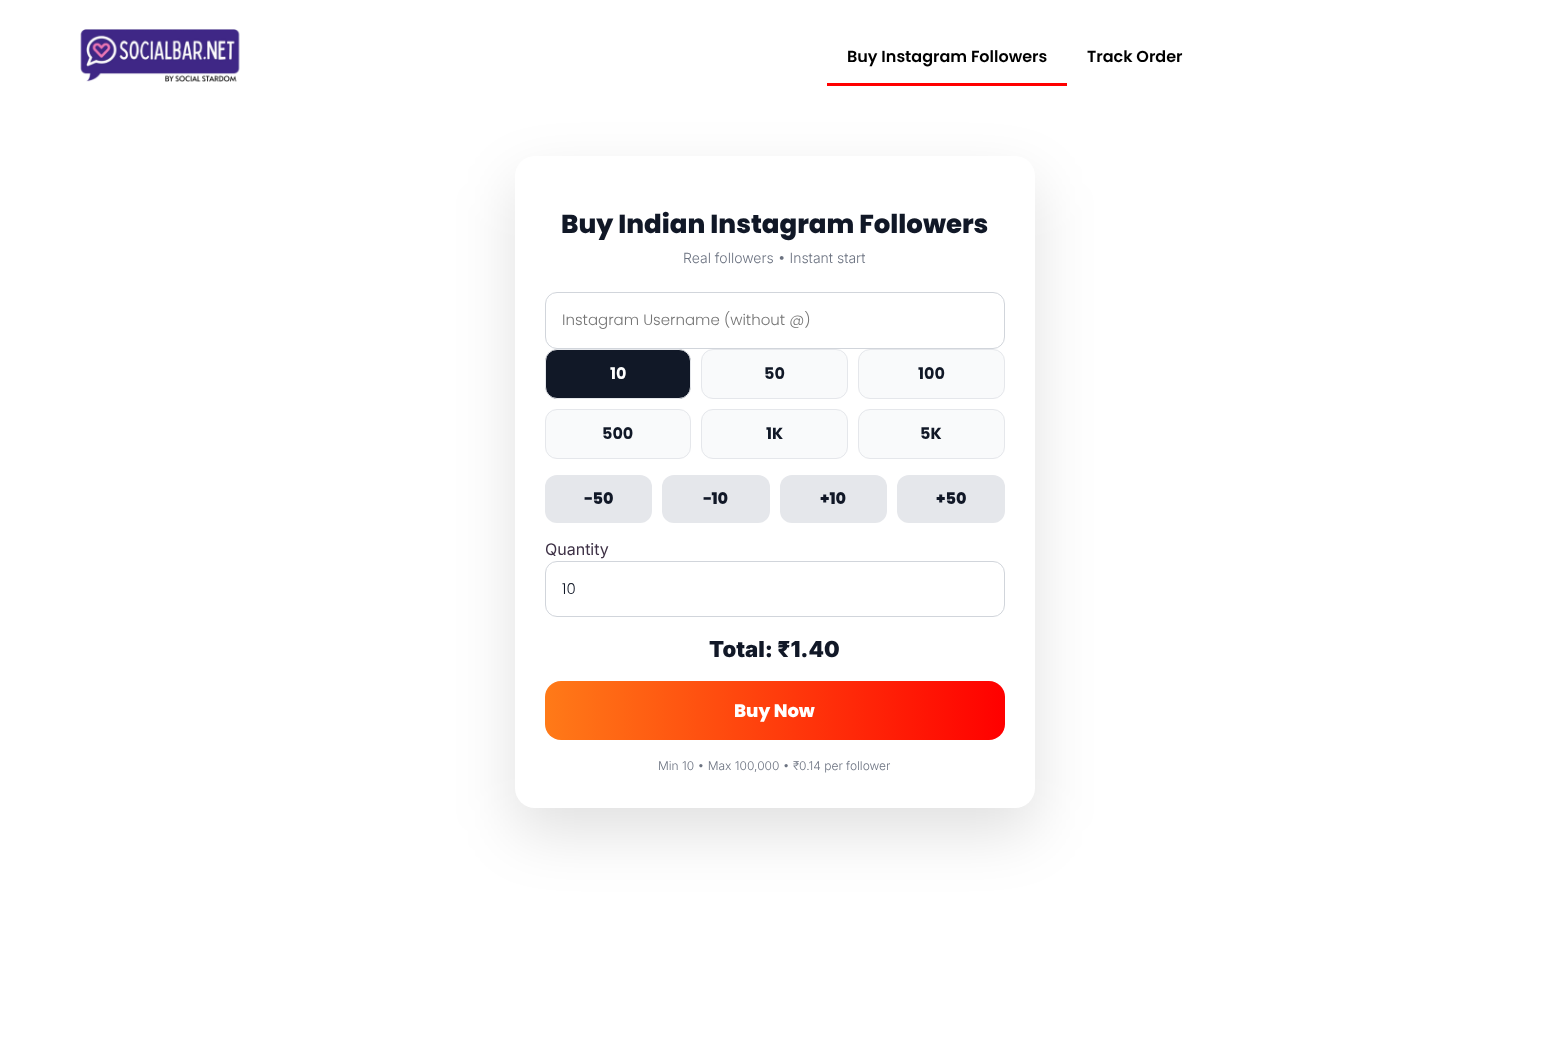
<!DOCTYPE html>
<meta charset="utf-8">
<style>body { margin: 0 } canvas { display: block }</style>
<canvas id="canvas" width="1549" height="1042"></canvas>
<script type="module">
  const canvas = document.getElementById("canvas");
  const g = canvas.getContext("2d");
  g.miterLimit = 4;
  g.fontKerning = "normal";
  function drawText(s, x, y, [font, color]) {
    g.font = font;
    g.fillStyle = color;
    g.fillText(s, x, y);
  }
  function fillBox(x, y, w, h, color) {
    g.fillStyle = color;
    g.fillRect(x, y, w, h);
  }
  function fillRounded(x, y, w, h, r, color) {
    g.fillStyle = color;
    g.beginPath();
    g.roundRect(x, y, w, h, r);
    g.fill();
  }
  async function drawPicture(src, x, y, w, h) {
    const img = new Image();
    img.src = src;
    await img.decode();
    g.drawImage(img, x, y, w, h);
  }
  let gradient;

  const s1 = ["600 16px Poppins", "#000000"];
  const s2 = ["800 26px Poppins", "#111827"];
  const s3 = ["300 14px Inter", "#6B7280"];
  const s4 = ["300 15px Poppins", "#757575"];
  const s5 = ["bold 16px Poppins", "#FFFFFF"];
  const s6 = ["bold 16px Poppins", "#111827"];
  const s7 = ["800 16px Poppins", "#111827"];
  const s8 = ["16px Inter", "#3D3045"];
  const s9 = ["300 15px Poppins", "#111827"];
  const s10 = ["900 22px Inter", "#111827"];
  const s11 = ["800 18px Poppins", "#FFFFFF"];
  const s12 = ["300 12px Inter", "#6B7280"];

  fillBox(0, 0, 1549, 1042, "#FFFFFF");
  await drawPicture("pic1.png", 80, 29, 160, 53);
  drawText("Buy Instagram Followers", 847, 62, s1);
  fillBox(827, 83, 240, 3, "#FF0000");
  drawText("Track Order", 1087, 62, s1);
  g.fillStyle = "rgba(0, 0, 0, 0.12)";
  g.filter = "blur(30px)";
  g.beginPath();
  g.roundRect(515, 181, 520, 652, 20);
  g.fill();
  g.filter = "none";
  fillRounded(515, 156, 520, 652, 20, "#FFFFFF");
  drawText("Buy Indian Instagram Followers", 561, 233, s2);
  drawText("Real followers • Instant start", 683, 263, s3);
  g.beginPath();
  g.roundRect(545.5, 292.5, 459, 56, 11.5);
  g.strokeStyle = "#D1D5DB";
  g.stroke();
  drawText("Instagram Username (without @)", 562, 325, s4);
  g.fillStyle = "#111827";
  g.beginPath();
  g.roundRect(545.5, 349.5, 145, 49, 11.5);
  g.fill();
  g.strokeStyle = "#E5E7EB";
  g.stroke();
  drawText("10", 610, 379, s5);
  g.fillStyle = "#F9FAFB";
  g.beginPath();
  g.roundRect(701.5, 349.5, 146, 49, 11.5);
  g.fill();
  g.stroke();
  drawText("50", 764, 379, s6);
  g.fillStyle = "#F9FAFB";
  g.beginPath();
  g.roundRect(858.5, 349.5, 146, 49, 11.5);
  g.fill();
  g.stroke();
  drawText("100", 918, 379, s6);
  g.fillStyle = "#F9FAFB";
  g.beginPath();
  g.roundRect(545.5, 409.5, 145, 49, 11.5);
  g.fill();
  g.stroke();
  drawText("500", 602, 439, s6);
  g.fillStyle = "#F9FAFB";
  g.beginPath();
  g.roundRect(701.5, 409.5, 146, 49, 11.5);
  g.fill();
  g.stroke();
  drawText("1K", 766, 439, s6);
  g.fillStyle = "#F9FAFB";
  g.beginPath();
  g.roundRect(858.5, 409.5, 146, 49, 11.5);
  g.fill();
  g.stroke();
  drawText("5K", 920, 439, s6);
  fillRounded(545, 475, 107, 48, 12, "#E5E7EB");
  drawText("−50", 584, 504, s7);
  fillRounded(662, 475, 108, 48, 12, "#E5E7EB");
  drawText("−10", 703, 504, s7);
  fillRounded(780, 475, 107, 48, 12, "#E5E7EB");
  drawText("+10", 820, 504, s7);
  fillRounded(897, 475, 108, 48, 12, "#E5E7EB");
  drawText("+50", 936, 504, s7);
  drawText("Quantity", 545, 555, s8);
  g.beginPath();
  g.roundRect(545.5, 561.5, 459, 55, 11.5);
  g.strokeStyle = "#D1D5DB";
  g.stroke();
  drawText("10", 562, 594, s9);
  drawText("Total: ₹1.40", 709, 657, s10);
  gradient = g.createLinearGradient(545, 711, 1005, 711);
  gradient.addColorStop(0, "#FF7A18");
  gradient.addColorStop(1, "#FF0000");
  g.fillStyle = gradient;
  g.beginPath();
  g.roundRect(545, 681, 460, 59, 16);
  g.fill();
  drawText("Buy Now", 734, 717, s11);
  drawText("Min 10 • Max 100,000 • ₹0.14 per follower", 658, 770, s12);
</script>
